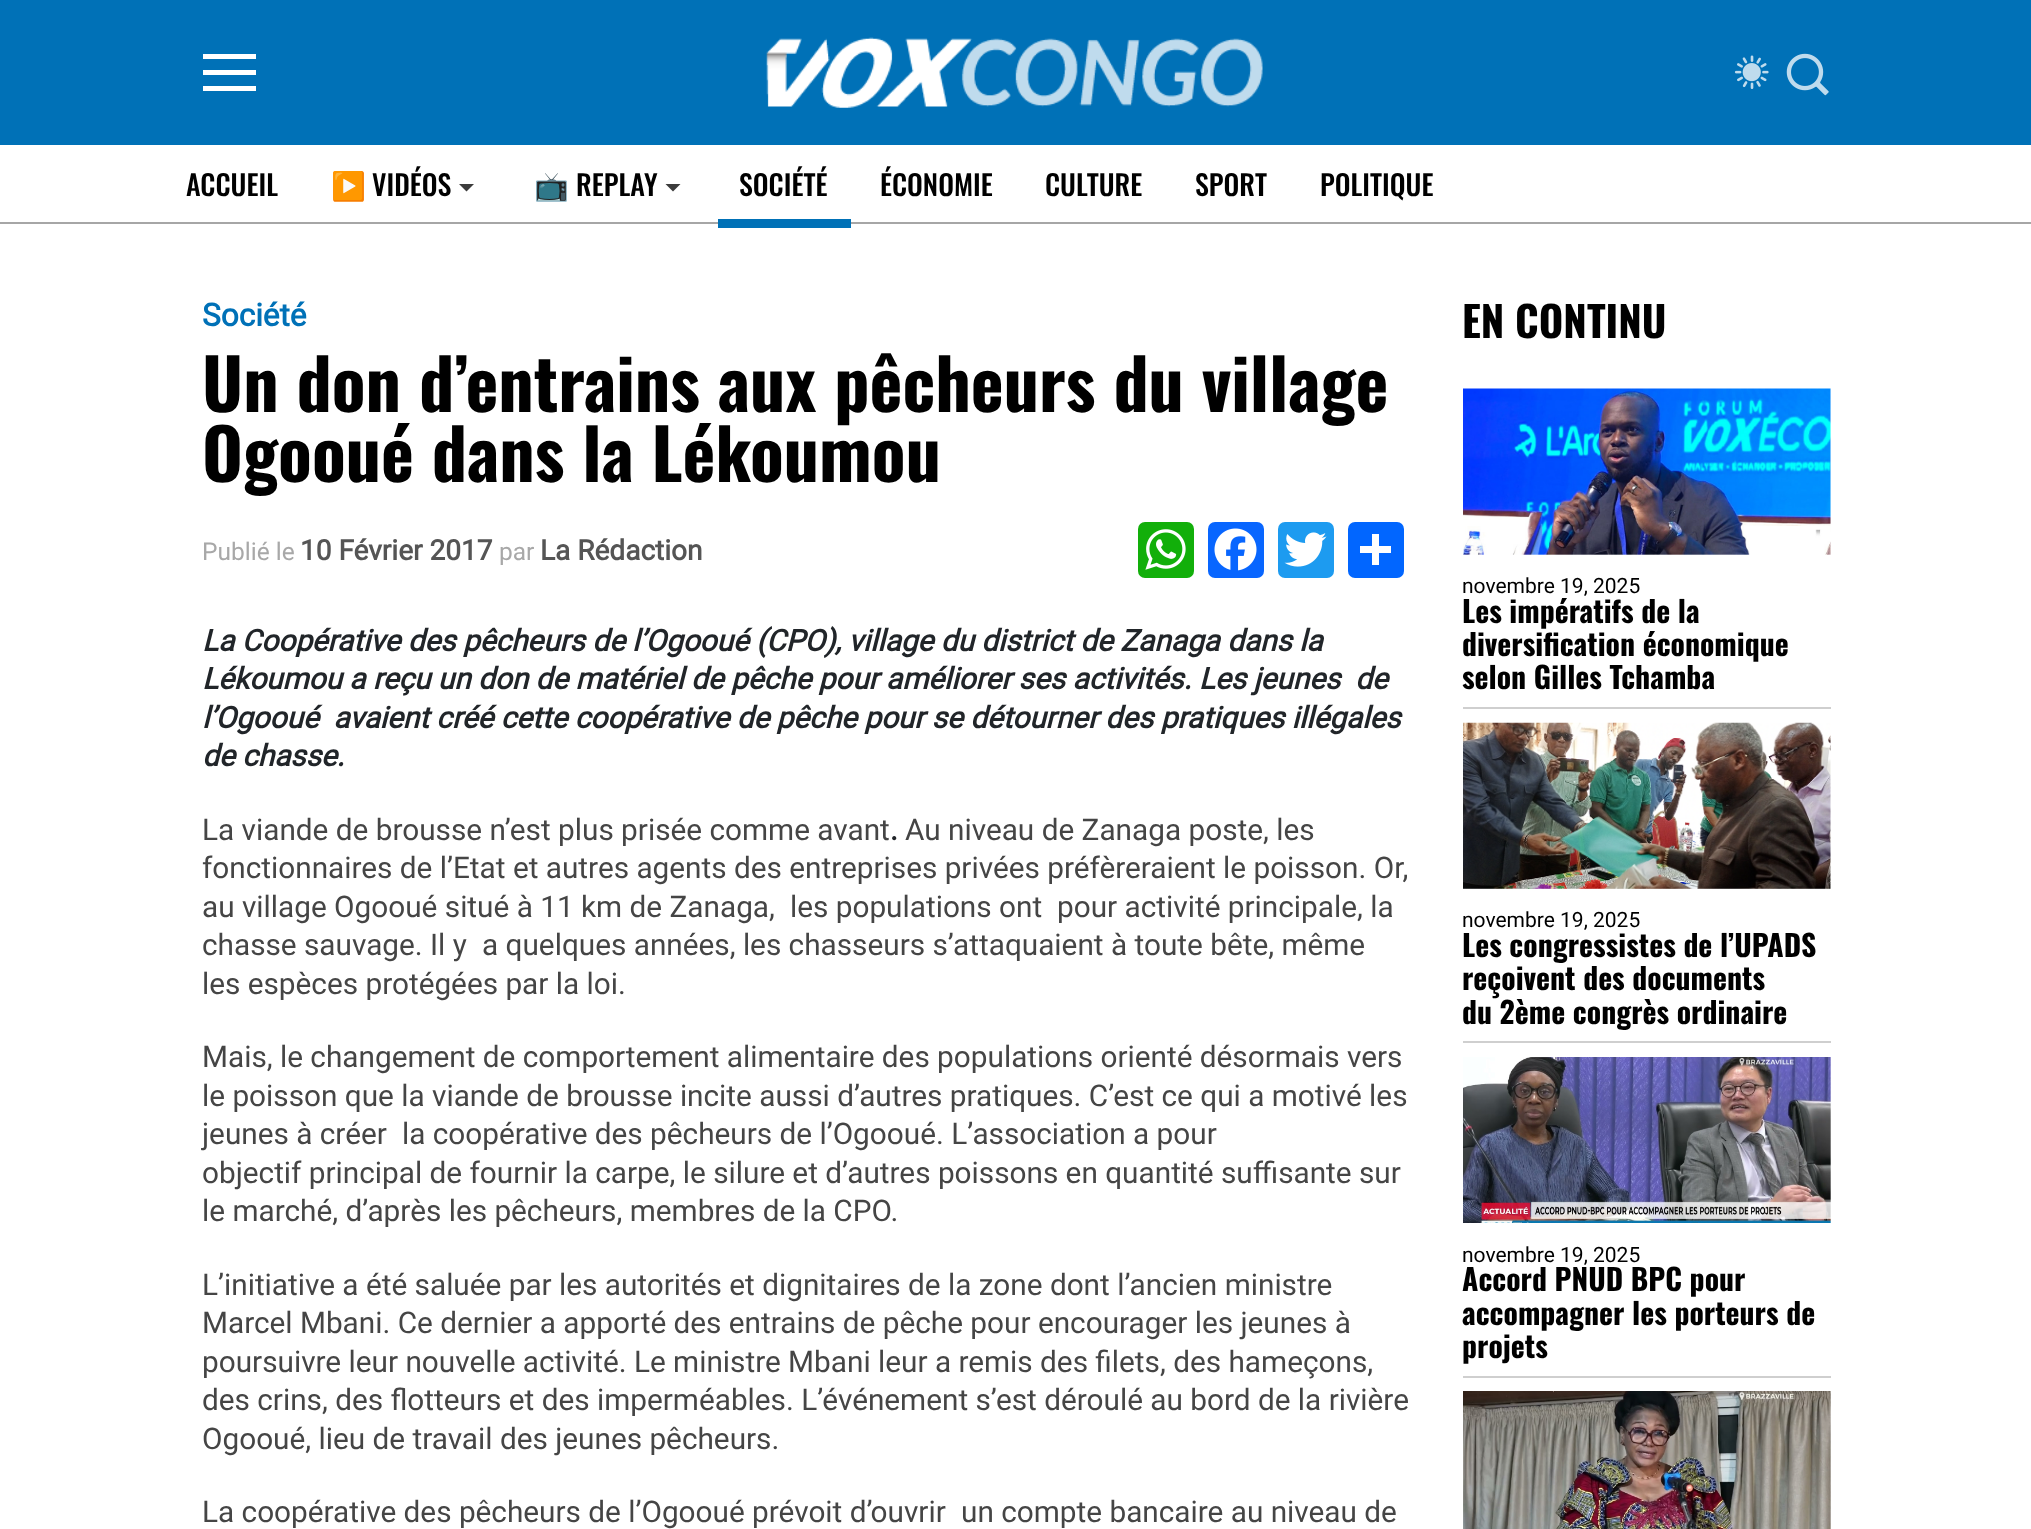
<!DOCTYPE html>
<meta charset="utf-8">
<style>body { margin: 0 } canvas { display: block }</style>
<canvas id="canvas" width="2031" height="1529"></canvas>
<script type="module">
  const canvas = document.getElementById("canvas");
  const g = canvas.getContext("2d");
  g.miterLimit = 4;
  g.fontKerning = "normal";
  function drawText(s, x, y, [font, color]) {
    g.font = font;
    g.fillStyle = color;
    g.fillText(s, x, y);
  }
  function fillBox(x, y, w, h, color) {
    g.fillStyle = color;
    g.fillRect(x, y, w, h);
  }
  function fillRounded(x, y, w, h, r, color) {
    g.fillStyle = color;
    g.beginPath();
    g.roundRect(x, y, w, h, r);
    g.fill();
  }
  async function drawPicture(src, x, y, w, h) {
    const img = new Image();
    img.src = src;
    await img.decode();
    g.drawImage(img, x, y, w, h);
  }

  const s1 = ["500 28px Oswald", "#000000"];
  const s2 = ["28px Noto Color Emoji", "#000000"];
  const s3 = ["bold 31.5px Roboto", "#0071B7"];
  const s4 = ["bold 70px Oswald", "#000000"];
  const s5 = ["24.5px Roboto", "#A8A8A8"];
  const s6 = ["bold 28px Roboto", "#555555"];
  const s7 = ["italic bold 29.75px Roboto", "#212529"];
  const s8 = ["29.75px Roboto", "#454545"];
  const s9 = ["bold 29.75px Roboto", "#212529"];
  const s10 = ["bold 42px Oswald", "#000000"];
  const s11 = ["21px Roboto", "#000000"];
  const s12 = ["bold 29.75px Oswald", "#000000"];

  fillBox(0, 0, 2031, 1529, "#FFFFFF");
  fillBox(0, 0, 2031, 145, "#0071B7");
  fillBox(203, 54, 53, 5, "#FFFFFF");
  fillBox(203, 70, 53, 5, "#FFFFFF");
  fillBox(203, 86, 53, 5, "#FFFFFF");
  await drawPicture("pic1.png", 766, 37, 497, 71);
  await drawPicture("pic2.png", 1734, 55, 35, 34);
  await drawPicture("pic3.png", 1786, 53, 43, 43);
  fillBox(0, 222, 2031, 2, "#A6A6A6");
  drawText("ACCUEIL", 186, 196, s1);
  drawText("▶️", 331, 196, s2);
  drawText("VIDÉOS", 372, 196, s1);
  g.fillStyle = "#3C3C3C";
  g.beginPath();
  g.moveTo(466.5, 191.5);
  g.lineTo(459, 184);
  g.lineTo(474, 184);
  g.closePath();
  g.fill();
  drawText("📺", 534, 196, s2);
  drawText("REPLAY", 576, 196, s1);
  g.fillStyle = "#3C3C3C";
  g.beginPath();
  g.moveTo(673, 191.5);
  g.lineTo(665.5, 184);
  g.lineTo(680.5, 184);
  g.closePath();
  g.fill();
  drawText("SOCIÉTÉ", 739, 196, s1);
  fillBox(718, 219, 133, 9, "#0071B7");
  drawText("ÉCONOMIE", 880, 196, s1);
  drawText("CULTURE", 1045, 196, s1);
  drawText("SPORT", 1195, 196, s1);
  drawText("POLITIQUE", 1320, 196, s1);
  drawText("Société", 202, 326, s3);
  drawText("Un don d’entrains aux pêcheurs du village", 202, 412, s4);
  drawText("Ogooué dans la Lékoumou", 202, 482, s4);
  drawText("Publié le", 202, 560, s5);
  drawText("10 Février 2017", 300, 560, s6);
  drawText("par", 499, 560, s5);
  drawText("La Rédaction", 540, 560, s6);
  fillRounded(1138, 522, 56, 56, 7, "#12AF0A");
  await drawPicture("pic4.png", 1145, 529, 41, 41);
  fillRounded(1208, 522, 56, 56, 7, "#0866FF");
  await drawPicture("pic5.png", 1214, 528, 43, 43);
  fillRounded(1278, 522, 56, 56, 7, "#1D9BF0");
  await drawPicture("pic6.png", 1284, 532, 43, 35);
  fillRounded(1348, 522, 56, 56, 7, "#0166FF");
  fillBox(1372, 534, 7, 31, "#FFFFFF");
  fillBox(1360, 546, 31, 7, "#FFFFFF");
  drawText("La Coopérative des pêcheurs de l’Ogooué (CPO), village du district de Zanaga dans la", 202, 651, s7);
  drawText("Lékoumou a reçu un don de matériel de pêche pour améliorer ses activités. Les jeunes", 202, 689, s7);
  drawText("de", 1355, 689, s7);
  drawText("l’Ogooué  avaient créé cette coopérative de pêche pour se détourner des pratiques illégales", 202, 728, s7);
  drawText("de chasse.", 202, 766, s7);
  drawText("La viande de brousse n’est plus prisée comme avant", 202, 840, s8);
  drawText(".", 890, 840, s9);
  drawText("Au niveau de Zanaga poste, les", 905, 840, s8);
  drawText("fonctionnaires de l’Etat et autres agents des entreprises privées préfèreraient le poisson. Or,", 202, 878, s8);
  drawText("au village Ogooué situé à 11 km de Zanaga,", 202, 917, s8);
  drawText("les populations ont", 790, 917, s8);
  drawText("pour activité principale, la", 1057, 917, s8);
  drawText("chasse sauvage. Il y", 202, 955, s8);
  drawText("a quelques années, les chasseurs s’attaquaient à toute bête, même", 482, 955, s8);
  drawText("les espèces protégées par la loi.", 202, 994, s8);
  drawText("Mais, le changement de comportement alimentaire des populations orienté désormais vers", 202, 1067, s8);
  drawText("le poisson que la viande de brousse incite aussi d’autres pratiques. C’est ce qui a motivé les", 202, 1106, s8);
  drawText("jeunes à créer", 202, 1144, s8);
  drawText("la coopérative des pêcheurs de l’Ogooué. L’association a pour", 402, 1144, s8);
  drawText("objectif principal de fournir la carpe, le silure et d’autres poissons en quantité suffisante sur", 202, 1183, s8);
  drawText("le marché, d’après les pêcheurs, membres de la CPO.", 202, 1221, s8);
  drawText("L’initiative a été saluée par les autorités et dignitaires de la zone dont l’ancien ministre", 202, 1295, s8);
  drawText("Marcel Mbani. Ce dernier a apporté des entrains de pêche pour encourager les jeunes à", 202, 1333, s8);
  drawText("poursuivre leur nouvelle activité. Le ministre Mbani leur a remis des filets, des hameçons,", 202, 1372, s8);
  drawText("des crins, des flotteurs et des imperméables. L’événement s’est déroulé au bord de la rivière", 202, 1410, s8);
  drawText("Ogooué, lieu de travail des jeunes pêcheurs.", 202, 1449, s8);
  drawText("La coopérative des pêcheurs de l’Ogooué prévoit d’ouvrir", 202, 1522, s8);
  drawText("un compte bancaire au niveau de", 961, 1522, s8);
  drawText("EN CONTINU", 1462, 338, s10);
  fillBox(1463, 707, 368, 2, "#CFCFCF");
  await drawPicture("pic7.png", 1463, 388, 368, 167);
  drawText("novembre 19, 2025", 1462, 593, s11);
  drawText("Les impératifs de la", 1462, 623, s12);
  drawText("diversification économique", 1462, 656, s12);
  drawText("selon Gilles Tchamba", 1462, 689, s12);
  fillBox(1463, 1041, 368, 2, "#CFCFCF");
  await drawPicture("pic8.png", 1463, 722, 368, 167);
  drawText("novembre 19, 2025", 1462, 927, s11);
  drawText("Les congressistes de l’UPADS", 1462, 957, s12);
  drawText("reçoivent des documents", 1462, 990, s12);
  drawText("du 2ème congrès ordinaire", 1462, 1024, s12);
  fillBox(1463, 1376, 368, 2, "#CFCFCF");
  await drawPicture("pic9.png", 1463, 1057, 368, 166);
  drawText("novembre 19, 2025", 1462, 1262, s11);
  drawText("Accord PNUD BPC pour", 1462, 1291, s12);
  drawText("accompagner les porteurs de", 1462, 1325, s12);
  drawText("projets", 1462, 1358, s12);
  await drawPicture("pic10.png", 1463, 1391, 368, 138);
</script>
